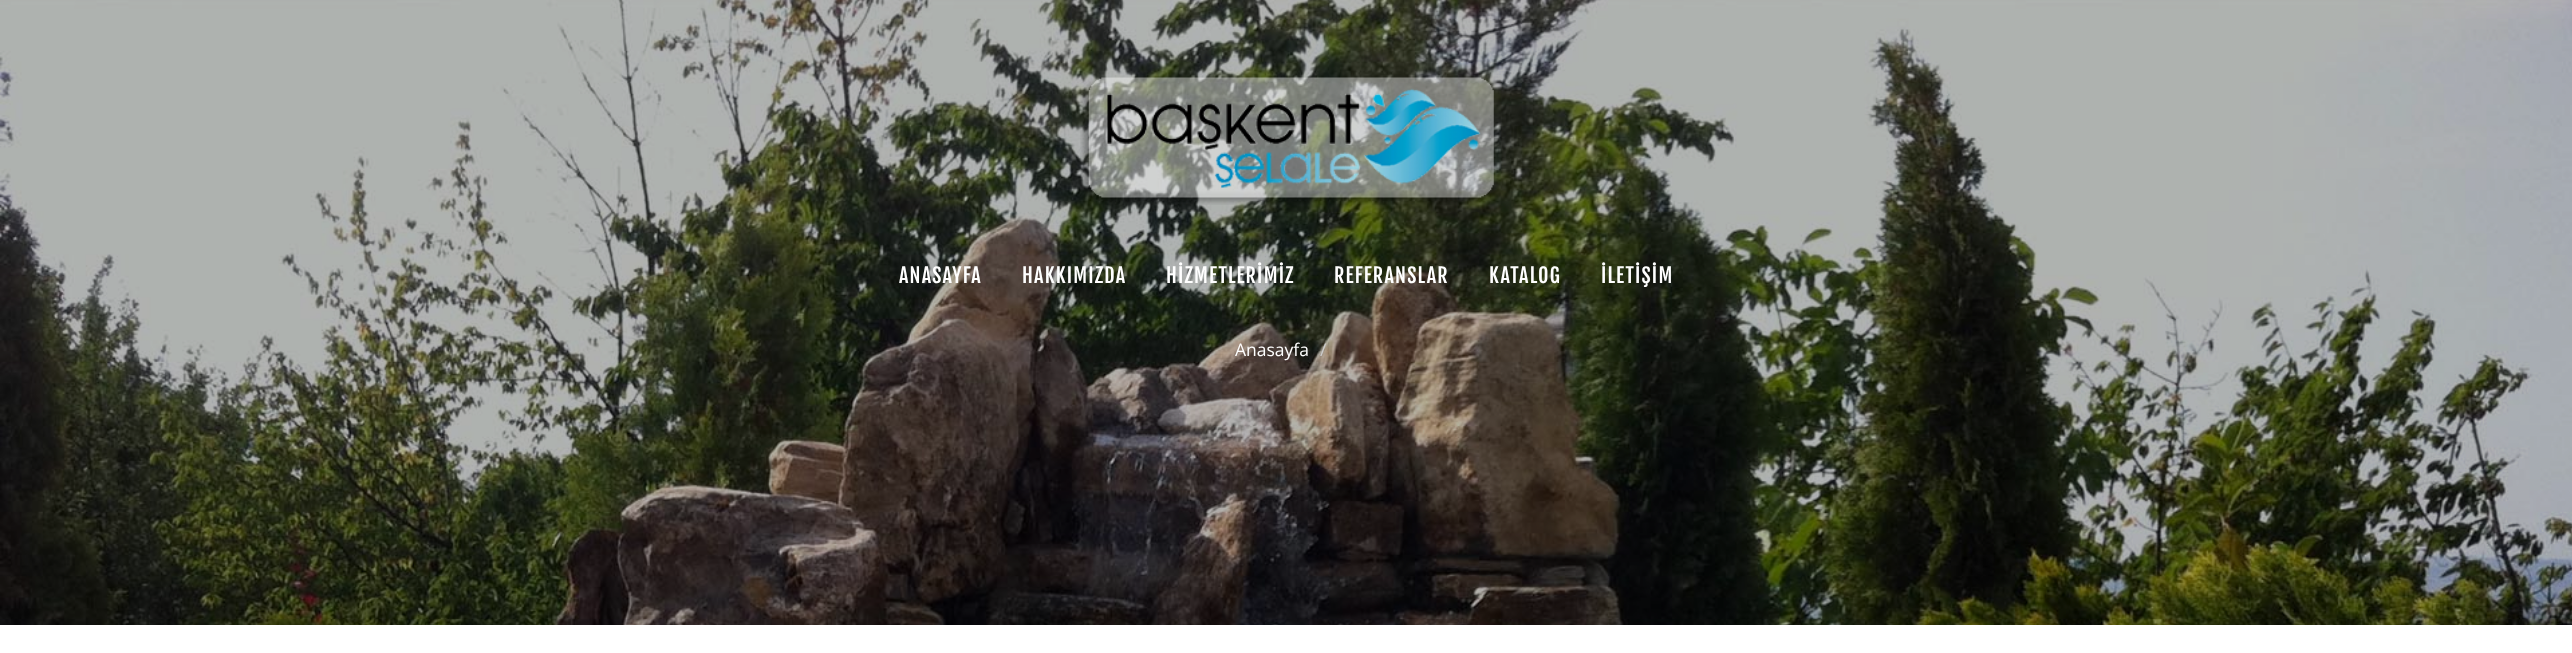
<!DOCTYPE html>
<meta charset="utf-8">
<style>body { margin: 0 } canvas { display: block }</style>
<canvas id="canvas" width="2572" height="653"></canvas>
<script type="module">
  const canvas = document.getElementById("canvas");
  const g = canvas.getContext("2d");
  g.miterLimit = 4;
  g.fontKerning = "normal";
  function drawText(s, x, y, [font, color]) {
    g.font = font;
    g.fillStyle = color;
    g.fillText(s, x, y);
  }
  function fillBox(x, y, w, h, color) {
    g.fillStyle = color;
    g.fillRect(x, y, w, h);
  }
  async function drawPicture(src, x, y, w, h) {
    const img = new Image();
    img.src = src;
    await img.decode();
    g.drawImage(img, x, y, w, h);
  }

  const s1 = ["20px Fjalla One", "#FFFFFF"];
  const s2 = ["17.5px Open Sans", "#FFFFFF"];
  const s3 = ["17.5px Open Sans", "#CCCCCC"];

  fillBox(0, 0, 2572, 653, "#FFFFFF");
  await drawPicture("pic2.png", 0, 0, 2572, 625);
  await drawPicture("pic1.png", 1080, 77, 414, 128);
  g.letterSpacing = "1.25px";
  drawText("ANASAYFA", 899, 283, s1);
  drawText("HAKKIMIZDA", 1022, 283, s1);
  drawText("HİZMETLERİMİZ", 1166, 283, s1);
  drawText("REFERANSLAR", 1334, 283, s1);
  drawText("KATALOG", 1489, 283, s1);
  drawText("İLETİŞİM", 1601, 283, s1);
  g.letterSpacing = "0px";
  drawText("Anasayfa", 1235, 356, s2);
  drawText("/", 1320, 356, s3);
</script>
